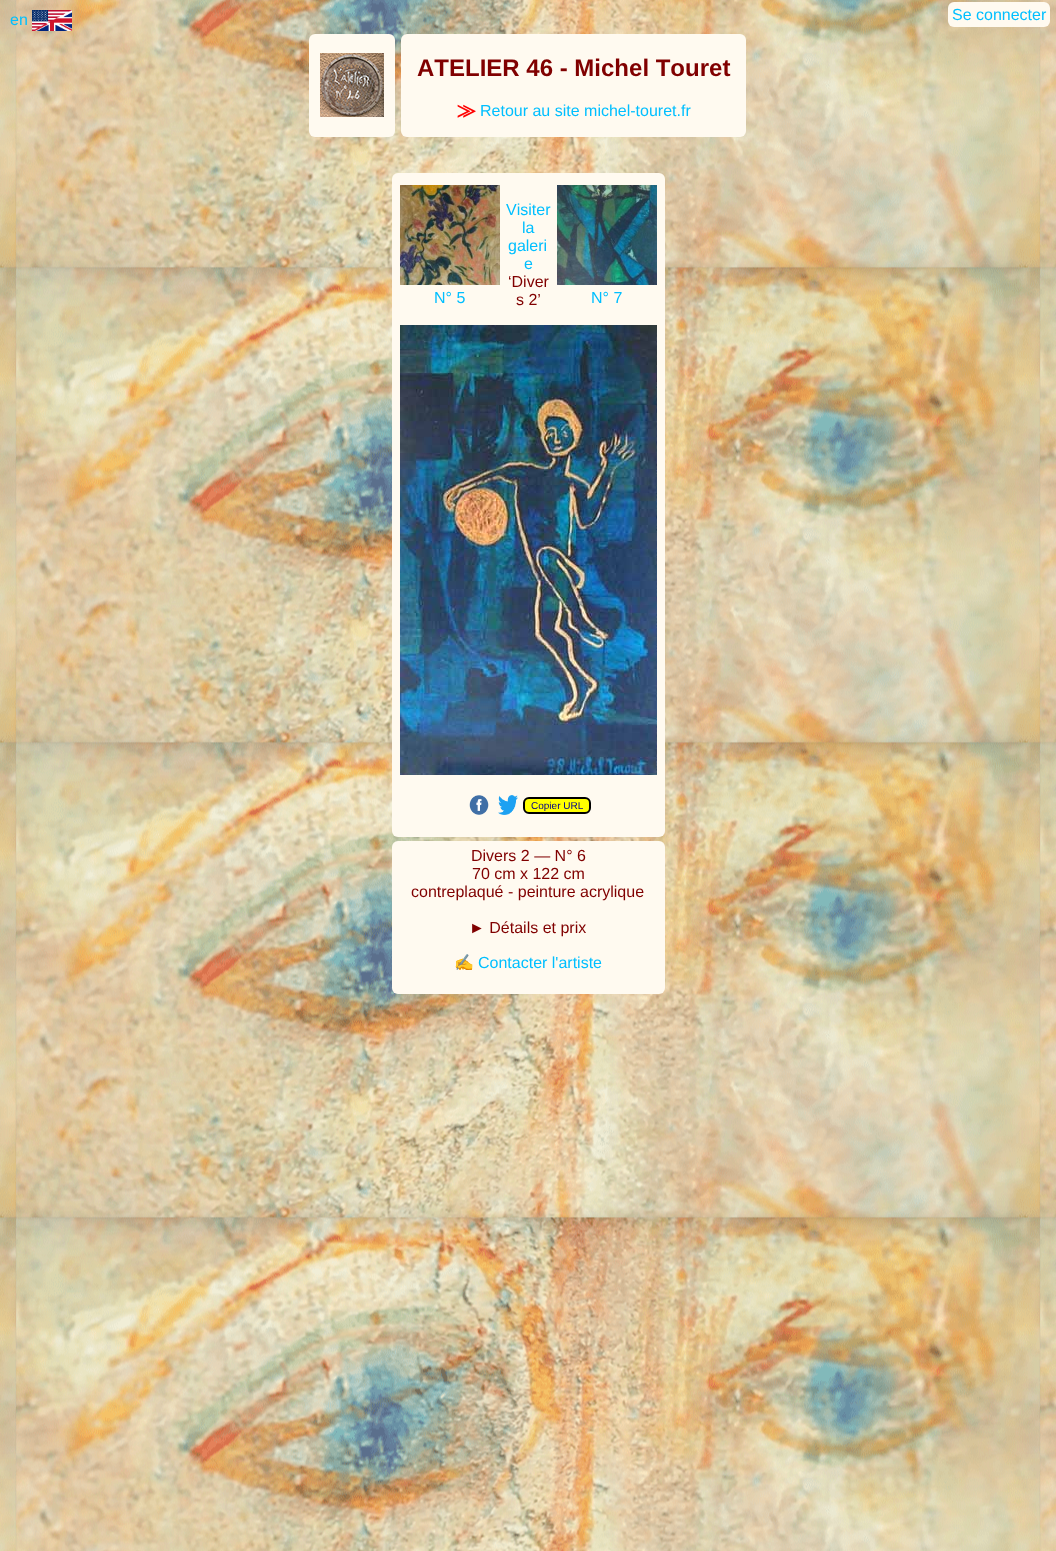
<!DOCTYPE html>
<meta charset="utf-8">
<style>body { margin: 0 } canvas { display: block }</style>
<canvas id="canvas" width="1056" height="1551"></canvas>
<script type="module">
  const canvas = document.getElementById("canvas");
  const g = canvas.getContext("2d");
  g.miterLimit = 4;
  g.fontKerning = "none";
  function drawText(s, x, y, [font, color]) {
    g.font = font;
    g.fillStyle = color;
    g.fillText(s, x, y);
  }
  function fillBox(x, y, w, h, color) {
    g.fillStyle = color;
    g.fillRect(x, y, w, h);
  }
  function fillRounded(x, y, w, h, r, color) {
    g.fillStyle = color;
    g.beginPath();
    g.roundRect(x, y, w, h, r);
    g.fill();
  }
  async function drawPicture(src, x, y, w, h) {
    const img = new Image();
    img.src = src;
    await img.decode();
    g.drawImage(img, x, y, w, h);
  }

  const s1 = ["16px Liberation Sans", "#00BFFF"];
  const s2 = ["bold 24px Liberation Sans", "#800000"];
  const s3 = ["bold 16px FreeSans", "#FF0000"];
  const s4 = ["16px Liberation Sans", "#800000"];
  const s5 = ["10px Liberation Sans", "#00008B"];
  const s6 = ["16px Noto Color Emoji", "#800000"];

  fillBox(0, 0, 1056, 1551, "#FFFFFF");
  await drawPicture("pic1.png", 0, 0, 1056, 1551);
  drawText("en", 10, 25, s1);
  await drawPicture("pic2.png", 32, 10, 40, 21);
  fillRounded(948, 2, 102, 25, 6, "#FFFAF0");
  drawText("Se connecter", 952, 20, s1);
  fillRounded(309, 34, 86, 103, 6, "#FFFAF0");
  await drawPicture("pic3.png", 320, 53, 64, 64);
  fillRounded(401, 34, 345, 103, 6, "#FFFAF0");
  drawText("ATELIER 46 - Michel Touret", 417, 76, s2);
  drawText("⨠", 457, 116, s3);
  drawText("Retour au site michel-touret.fr", 480, 116, s1);
  fillRounded(392, 173, 273, 664, 6, "#FFFAF0");
  await drawPicture("pic4.png", 400, 185, 100, 100);
  drawText("N° 5", 434, 303, s1);
  drawText("Visiter", 506, 215, s1);
  drawText("la", 522, 233, s1);
  drawText("galeri", 508, 251, s1);
  drawText("e", 524, 269, s1);
  drawText("‘Diver", 508, 287, s4);
  drawText("s 2’", 516, 305, s4);
  await drawPicture("pic5.png", 557, 185, 100, 100);
  drawText("N° 7", 591, 303, s1);
  await drawPicture("pic6.png", 400, 325, 257, 450);
  await drawPicture("pic7.png", 469, 795, 20, 20);
  await drawPicture("pic8.png", 498, 795, 20, 20);
  g.fillStyle = "#FFFF00";
  g.beginPath();
  g.roundRect(524, 798, 66, 15, 5);
  g.fill();
  g.strokeStyle = "#000000";
  g.lineWidth = 2;
  g.stroke();
  drawText("Copier URL", 531, 809, s5);
  fillRounded(392, 841, 273, 153, 6, "#FFFAF0");
  drawText("Divers 2 — N° 6", 471, 861, s4);
  drawText("70 cm x 122 cm", 472, 879, s4);
  drawText("contreplaqué - peinture acrylique", 411, 897, s4);
  drawText("► Détails et prix", 469, 933, s4);
  drawText("✍", 454, 968, s6);
  drawText("Contacter l'artiste", 478, 968, s1);
</script>
